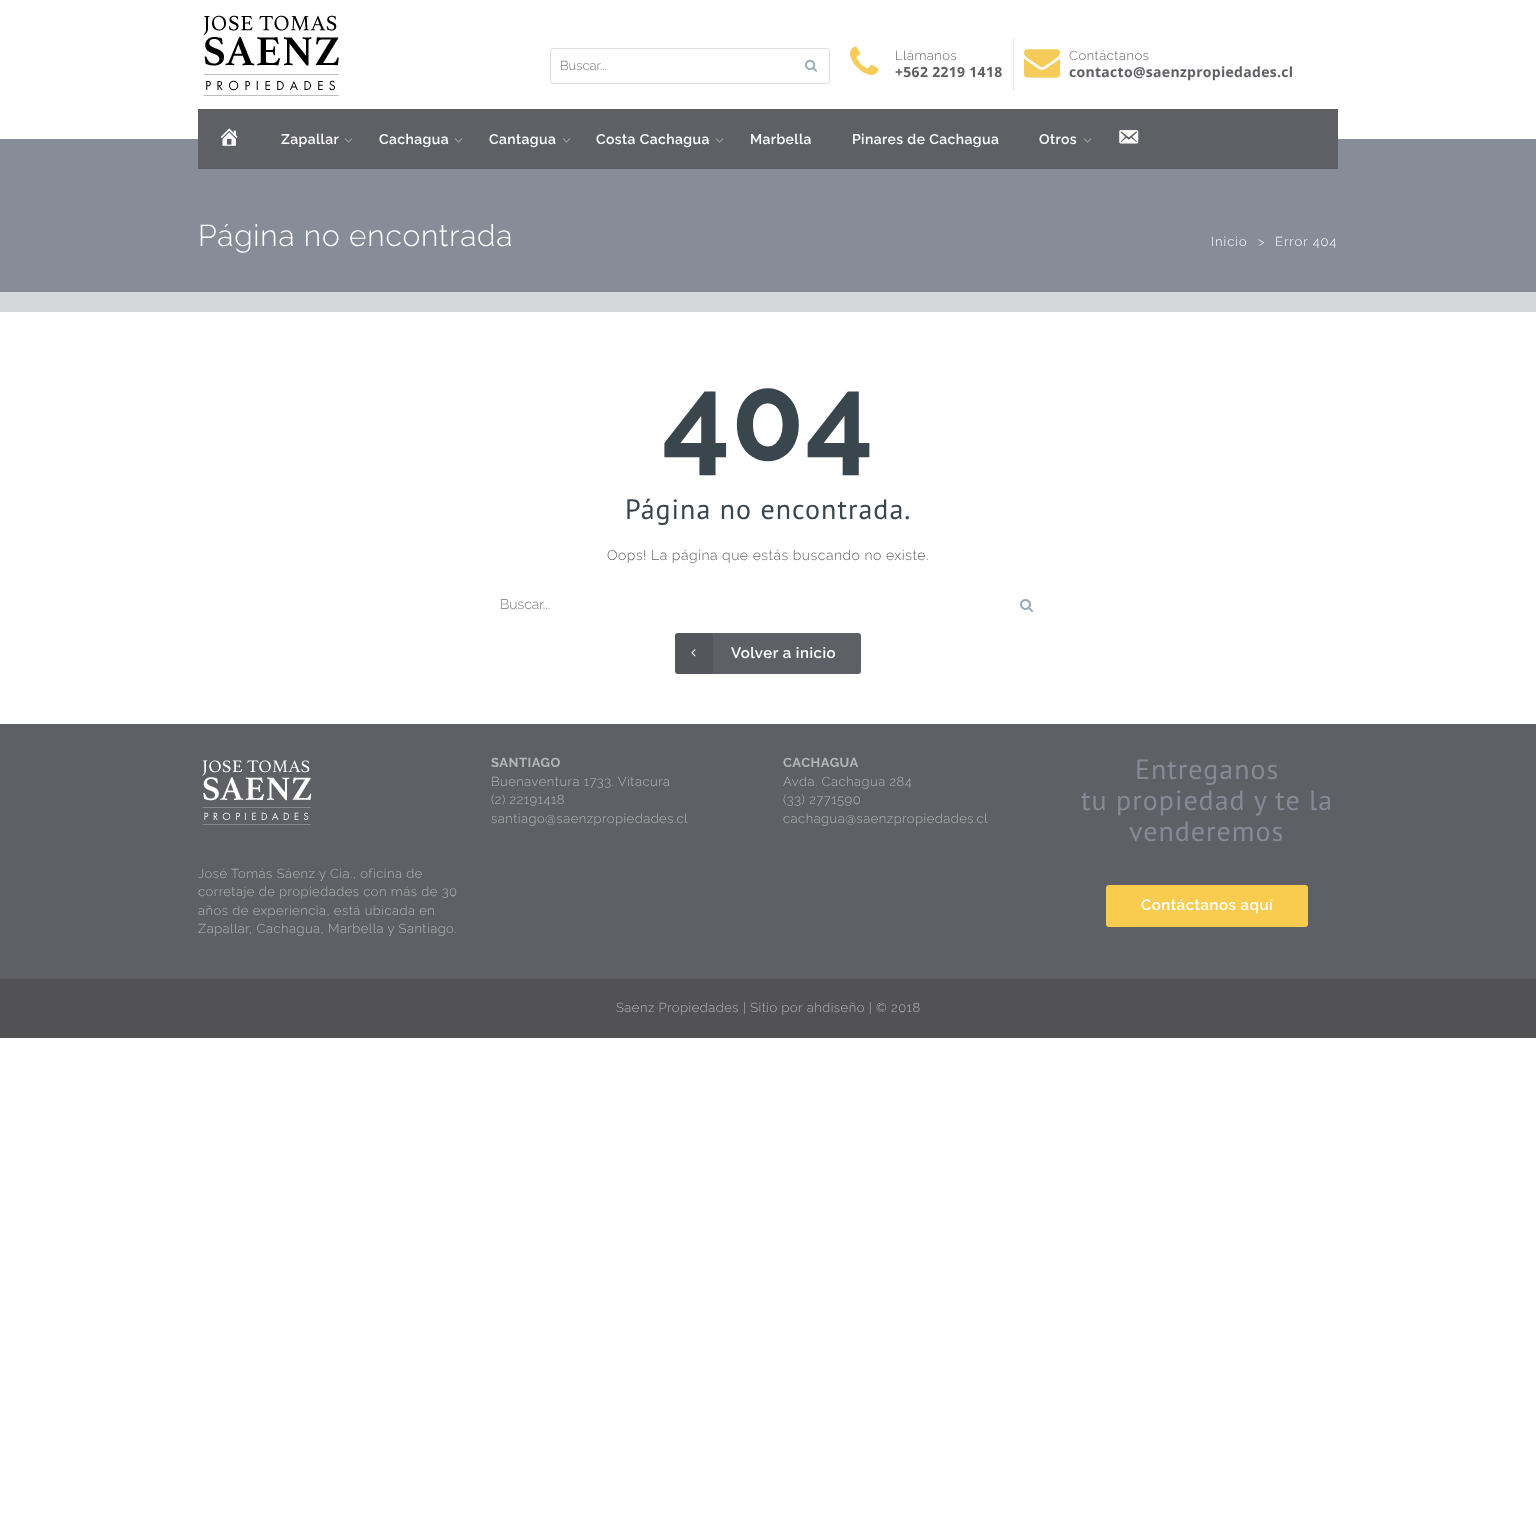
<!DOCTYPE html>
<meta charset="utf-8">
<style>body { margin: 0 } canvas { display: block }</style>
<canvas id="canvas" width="1536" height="1528"></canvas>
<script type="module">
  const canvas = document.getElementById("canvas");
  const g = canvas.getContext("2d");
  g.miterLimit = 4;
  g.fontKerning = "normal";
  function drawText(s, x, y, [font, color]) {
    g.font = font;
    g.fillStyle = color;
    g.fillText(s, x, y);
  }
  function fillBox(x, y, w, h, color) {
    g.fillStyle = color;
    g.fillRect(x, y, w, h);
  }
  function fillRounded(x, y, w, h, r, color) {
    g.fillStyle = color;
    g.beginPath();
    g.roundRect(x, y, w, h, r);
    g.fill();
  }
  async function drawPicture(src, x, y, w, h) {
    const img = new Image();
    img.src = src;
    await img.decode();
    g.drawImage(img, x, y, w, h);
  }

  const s1 = ["300 13px Raleway", "#757575"];
  const s2 = ["300 13px Raleway", "#5F6066"];
  const s3 = ["bold 14px Open Sans", "#5F6066"];
  const s4 = ["600 14px Raleway", "#FFFFFF"];
  const s5 = ["300 30px Raleway", "#FFFFFF"];
  const s6 = ["300 13px Raleway", "#FFFFFF"];
  const s7 = ["bold 120px Raleway", "#3A464E"];
  const s8 = ["28px PT Sans", "#3A464E"];
  const s9 = ["300 14px Raleway", "#5F6066"];
  const s10 = ["300 14px Raleway", "#757575"];
  const s11 = ["600 15px Raleway", "#FFFFFF"];
  const s12 = ["300 13px Raleway", "#B5B5B5"];
  const s13 = ["bold 13px Raleway", "#B5B5B5"];
  const s14 = ["28px PT Sans", "#858A96"];

  fillBox(0, 0, 1536, 1528, "#FFFFFF");
  await drawPicture("pic1.png", 203, 15, 136, 81);
  g.beginPath();
  g.roundRect(550.5, 48.5, 279, 35, 2.5);
  g.strokeStyle = "#DEDEDE";
  g.stroke();
  drawText("Buscar...", 560, 70, s1);
  await drawPicture("pic2.png", 805, 59, 12, 13);
  await drawPicture("pic3.png", 850, 46, 29, 29);
  g.letterSpacing = "0.5px";
  drawText("Llámanos", 895, 60, s2);
  g.letterSpacing = "0.3px";
  drawText("+562 2219 1418", 895, 77, s3);
  fillBox(1013, 38, 1, 53, "#E6E6E6");
  await drawPicture("pic4.png", 1024, 49, 36, 29);
  g.letterSpacing = "0.5px";
  drawText("Contáctanos", 1069, 60, s2);
  g.letterSpacing = "0.3px";
  drawText("contacto@saenzpropiedades.cl", 1069, 77, s3);
  fillBox(0, 139, 1536, 153, "#868C98");
  fillBox(198, 109, 1140, 60, "#5F6066");
  await drawPicture("pic5.png", 220, 128, 18, 18);
  g.letterSpacing = "0.4px";
  drawText("Zapallar", 281, 144, s4);
  await drawPicture("pic6.png", 344, 138, 9, 5);
  drawText("Cachagua", 379, 144, s4);
  await drawPicture("pic6.png", 454, 138, 9, 5);
  drawText("Cantagua", 489, 144, s4);
  await drawPicture("pic6.png", 562, 138, 9, 5);
  drawText("Costa Cachagua", 596, 144, s4);
  await drawPicture("pic6.png", 715, 138, 9, 5);
  drawText("Marbella", 750, 144, s4);
  drawText("Pinares de Cachagua", 852, 144, s4);
  drawText("Otros", 1039, 144, s4);
  await drawPicture("pic6.png", 1083, 138, 9, 5);
  await drawPicture("pic7.png", 1119, 130, 20, 14);
  fillBox(0, 292, 1536, 20, "#D5D7DB");
  g.letterSpacing = "0.8px";
  drawText("Página no encontrada", 198, 246, s5);
  g.letterSpacing = "1px";
  drawText("Inicio", 1211, 246, s6);
  drawText(">", 1258, 246, s6);
  drawText("Error 404", 1275, 246, s6);
  g.letterSpacing = "0.5px";
  drawText("404", 662, 460, s7);
  g.letterSpacing = "1px";
  drawText("Página no encontrada.", 625, 519, s8);
  g.letterSpacing = "0.5px";
  drawText("Oops! La página que estás buscando no existe.", 607, 560, s9);
  g.letterSpacing = "0px";
  drawText("Buscar...", 500, 609, s10);
  await drawPicture("pic8.png", 1020, 599, 13, 13);
  fillRounded(675, 633, 186, 41, 3, "#5F6066");
  fillRounded(675, 633, 38, 41, 2, "rgba(0, 0, 0, 0.1)");
  await drawPicture("pic9.png", 691, 649, 5, 8);
  g.letterSpacing = "0.5px";
  drawText("Volver a inicio", 731, 658, s11);
  fillBox(0, 724, 1536, 255, "#5F6066");
  await drawPicture("pic10.png", 202, 760, 110, 65);
  drawText("José Tomás Sáenz y Cia., oficina de", 198, 878, s12);
  drawText("corretaje de propiedades con más de 30", 198, 896, s12);
  drawText("años de experiencia, está ubicada en", 198, 915, s12);
  drawText("Zapallar, Cachagua, Marbella y Santiago.", 198, 933, s12);
  drawText("SANTIAGO", 491, 767, s13);
  drawText("Buenaventura 1733. Vitacura", 491, 786, s12);
  drawText("(2) 22191418", 491, 804, s12);
  drawText("santiago@saenzpropiedades.cl", 491, 823, s12);
  drawText("CACHAGUA", 783, 767, s13);
  drawText("Avda. Cachagua 284", 783, 786, s12);
  drawText("(33) 2771590", 783, 804, s12);
  drawText("cachagua@saenzpropiedades.cl", 783, 823, s12);
  g.letterSpacing = "1px";
  drawText("Entreganos", 1135, 779, s14);
  drawText("tu propiedad y te la", 1081, 810, s14);
  drawText("venderemos", 1129, 841, s14);
  fillRounded(1106, 885, 202, 42, 3, "#F9CC4F");
  g.letterSpacing = "0.5px";
  drawText("Contáctanos aquí", 1141, 910, s11);
  fillBox(0, 979, 1536, 59, "#525254");
  drawText("Saenz Propiedades | Sitio por ahdiseño | © 2018", 616, 1012, s12);
</script>
